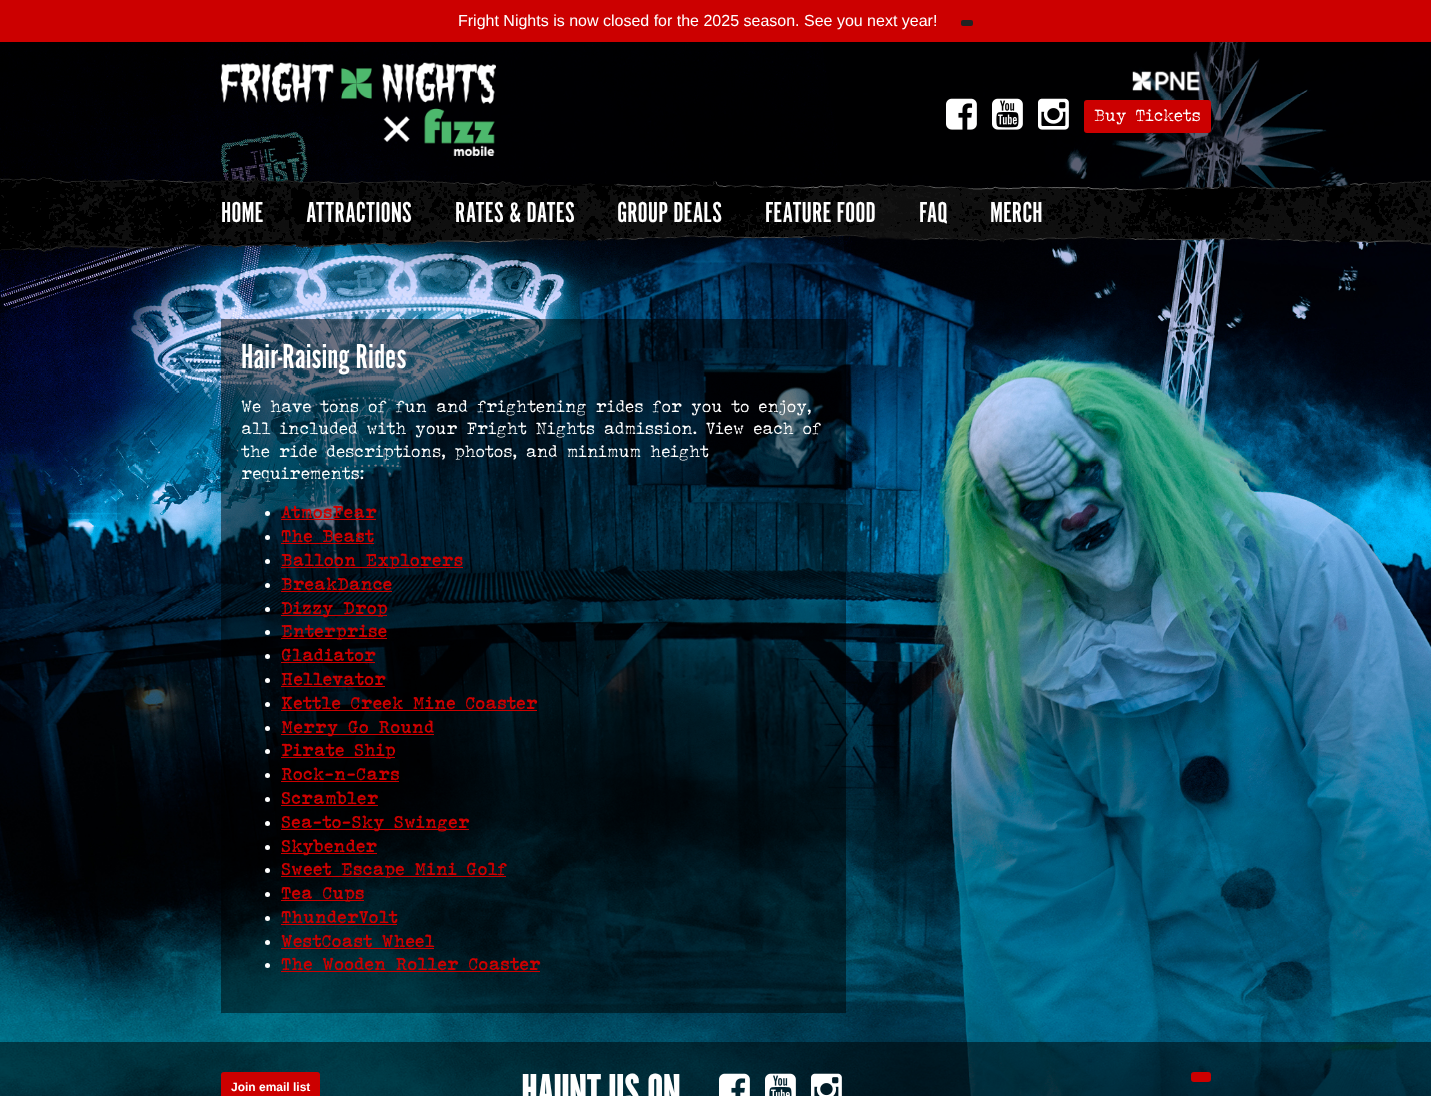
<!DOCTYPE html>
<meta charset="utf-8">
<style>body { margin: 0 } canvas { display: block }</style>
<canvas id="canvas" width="1431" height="1096"></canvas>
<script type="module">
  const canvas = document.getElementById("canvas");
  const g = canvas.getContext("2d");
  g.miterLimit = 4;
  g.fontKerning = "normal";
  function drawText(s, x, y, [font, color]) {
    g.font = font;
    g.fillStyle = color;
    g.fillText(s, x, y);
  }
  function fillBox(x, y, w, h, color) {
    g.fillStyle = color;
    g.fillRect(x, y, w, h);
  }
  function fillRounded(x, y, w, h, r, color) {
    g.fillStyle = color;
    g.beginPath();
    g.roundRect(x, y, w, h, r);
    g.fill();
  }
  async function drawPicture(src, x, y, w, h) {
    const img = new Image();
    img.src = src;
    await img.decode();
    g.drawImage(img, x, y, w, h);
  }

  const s1 = ["16px Liberation Sans", "#FFFFFF"];
  const s2 = ["16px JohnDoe", "#FFFFFF"];
  const s3 = ["30px 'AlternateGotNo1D'", "#FFFFFF"];
  const s4 = ["36px 'AlternateGotNo1D'", "#FFFFFF"];
  const s5 = ["bold 17px JohnDoe", "#CC0000"];
  const s6 = ["bold 12px Liberation Sans", "#FFFFFF"];
  const s7 = ["bold 46px 'AlternateGotNo1D'", "#FFFFFF"];

  fillBox(0, 0, 1431, 1096, "#FFFFFF");
  fillBox(0, 0, 1431, 42, "#CC0000");
  drawText("Fright Nights is now closed for the 2025 season. See you next year!", 458, 26, s1);
  fillRounded(961, 20, 12, 6, 2, "#222222");
  await drawPicture("pic1.png", 0, 42, 1431, 1054);
  fillBox(0, 42, 1431, 156, "rgba(0, 0, 0, 0.5)");
  await drawPicture("pic2.png", 221, 62, 275, 94);
  await drawPicture("pic3.png", 1132, 71, 68, 20);
  await drawPicture("pic4.png", 946, 98, 31, 32);
  await drawPicture("pic5.png", 992, 98, 31, 32);
  await drawPicture("pic6.png", 1038, 98, 31, 32);
  fillRounded(1084, 100, 127, 33, 3, "#CC0000");
  drawText("Buy Tickets", 1094, 121, s2);
  await drawPicture("pic7.png", 0, 177, 1431, 75);
  drawText("HOME", 221, 222, s3);
  drawText("ATTRACTIONS", 306, 222, s3);
  drawText("RATES & DATES", 455, 222, s3);
  drawText("GROUP DEALS", 617, 222, s3);
  drawText("FEATURE FOOD", 765, 222, s3);
  drawText("FAQ", 919, 222, s3);
  drawText("MERCH", 990, 222, s3);
  fillBox(221, 319, 625, 694, "rgba(0, 0, 0, 0.5)");
  drawText("Hair-Raising Rides", 241, 368, s4);
  drawText("We have tons of fun and frightening rides for you to enjoy,", 241, 412, s2);
  drawText("all included with your Fright Nights admission. View each of", 241, 434, s2);
  drawText("the ride descriptions, photos, and minimum height", 241, 457, s2);
  drawText("requirements:", 241, 479, s2);
  g.beginPath();
  g.arc(267.5, 513.5, 2.5, 0, Math.PI * 2);
  g.fill();
  drawText("AtmosFear", 281, 518, s5);
  fillBox(281, 519, 95, 1, "#CC0000");
  g.fillStyle = "#FFFFFF";
  g.beginPath();
  g.arc(267.5, 537.5, 2.5, 0, Math.PI * 2);
  g.fill();
  drawText("The Beast", 281, 542, s5);
  fillBox(281, 543, 93, 1, "#CC0000");
  g.fillStyle = "#FFFFFF";
  g.beginPath();
  g.arc(267.5, 561.5, 2.5, 0, Math.PI * 2);
  g.fill();
  fillBox(281, 567, 182, 1, "#CC0000");
  drawText("Balloon Explorers", 281, 566, s5);
  g.fillStyle = "#FFFFFF";
  g.beginPath();
  g.arc(267.5, 585.5, 2.5, 0, Math.PI * 2);
  g.fill();
  drawText("BreakDance", 281, 590, s5);
  fillBox(281, 591, 111, 1, "#CC0000");
  g.fillStyle = "#FFFFFF";
  g.beginPath();
  g.arc(267.5, 609.5, 2.5, 0, Math.PI * 2);
  g.fill();
  fillBox(281, 615, 106, 1, "#CC0000");
  drawText("Dizzy Drop", 281, 614, s5);
  g.fillStyle = "#FFFFFF";
  g.beginPath();
  g.arc(267.5, 632.5, 2.5, 0, Math.PI * 2);
  g.fill();
  fillBox(281, 638, 106, 1, "#CC0000");
  drawText("Enterprise", 281, 637, s5);
  g.fillStyle = "#FFFFFF";
  g.beginPath();
  g.arc(267.5, 656.5, 2.5, 0, Math.PI * 2);
  g.fill();
  drawText("Gladiator", 281, 661, s5);
  fillBox(281, 662, 94, 1, "#CC0000");
  g.fillStyle = "#FFFFFF";
  g.beginPath();
  g.arc(267.5, 680.5, 2.5, 0, Math.PI * 2);
  g.fill();
  drawText("Hellevator", 281, 685, s5);
  fillBox(281, 686, 104, 1, "#CC0000");
  g.fillStyle = "#FFFFFF";
  g.beginPath();
  g.arc(267.5, 704.5, 2.5, 0, Math.PI * 2);
  g.fill();
  drawText("Kettle Creek Mine Coaster", 281, 709, s5);
  fillBox(281, 710, 256, 1, "#CC0000");
  g.fillStyle = "#FFFFFF";
  g.beginPath();
  g.arc(267.5, 728.5, 2.5, 0, Math.PI * 2);
  g.fill();
  fillBox(281, 734, 153, 1, "#CC0000");
  drawText("Merry Go Round", 281, 733, s5);
  g.fillStyle = "#FFFFFF";
  g.beginPath();
  g.arc(267.5, 751.5, 2.5, 0, Math.PI * 2);
  g.fill();
  fillBox(281, 757, 114, 1, "#CC0000");
  drawText("Pirate Ship", 281, 756, s5);
  g.fillStyle = "#FFFFFF";
  g.beginPath();
  g.arc(267.5, 775.5, 2.5, 0, Math.PI * 2);
  g.fill();
  drawText("Rock-n-Cars", 281, 780, s5);
  fillBox(281, 781, 118, 1, "#CC0000");
  g.fillStyle = "#FFFFFF";
  g.beginPath();
  g.arc(267.5, 799.5, 2.5, 0, Math.PI * 2);
  g.fill();
  drawText("Scrambler", 281, 804, s5);
  fillBox(281, 805, 97, 1, "#CC0000");
  g.fillStyle = "#FFFFFF";
  g.beginPath();
  g.arc(267.5, 823.5, 2.5, 0, Math.PI * 2);
  g.fill();
  fillBox(281, 829, 188, 1, "#CC0000");
  drawText("Sea-to-Sky Swinger", 281, 828, s5);
  g.fillStyle = "#FFFFFF";
  g.beginPath();
  g.arc(267.5, 847.5, 2.5, 0, Math.PI * 2);
  g.fill();
  fillBox(281, 853, 96, 1, "#CC0000");
  drawText("Skybender", 281, 852, s5);
  g.fillStyle = "#FFFFFF";
  g.beginPath();
  g.arc(267.5, 870.5, 2.5, 0, Math.PI * 2);
  g.fill();
  fillBox(281, 876, 225, 1, "#CC0000");
  drawText("Sweet Escape Mini Golf", 281, 875, s5);
  g.fillStyle = "#FFFFFF";
  g.beginPath();
  g.arc(267.5, 894.5, 2.5, 0, Math.PI * 2);
  g.fill();
  fillBox(281, 900, 83, 1, "#CC0000");
  drawText("Tea Cups", 281, 899, s5);
  g.fillStyle = "#FFFFFF";
  g.beginPath();
  g.arc(267.5, 918.5, 2.5, 0, Math.PI * 2);
  g.fill();
  drawText("ThunderVolt", 281, 923, s5);
  fillBox(281, 924, 116, 1, "#CC0000");
  g.fillStyle = "#FFFFFF";
  g.beginPath();
  g.arc(267.5, 942.5, 2.5, 0, Math.PI * 2);
  g.fill();
  drawText("WestCoast Wheel", 281, 947, s5);
  fillBox(281, 948, 153, 1, "#CC0000");
  g.fillStyle = "#FFFFFF";
  g.beginPath();
  g.arc(267.5, 965.5, 2.5, 0, Math.PI * 2);
  g.fill();
  drawText("The Wooden Roller Coaster", 281, 970, s5);
  fillBox(281, 971, 259, 1, "#CC0000");
  fillBox(0, 1042, 1431, 54, "rgba(0, 0, 0, 0.5)");
  fillRounded(221, 1072, 99, 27, 3, "#CC0000");
  drawText("Join email list", 231, 1091, s6);
  drawText("HAUNT US ON", 521, 1106, s7);
  await drawPicture("pic8.png", 719, 1073, 31, 23);
  await drawPicture("pic9.png", 765, 1073, 31, 23);
  await drawPicture("pic10.png", 811, 1073, 31, 23);
  fillRounded(1191, 1072, 20, 10, 3, "#CC0000");
</script>
